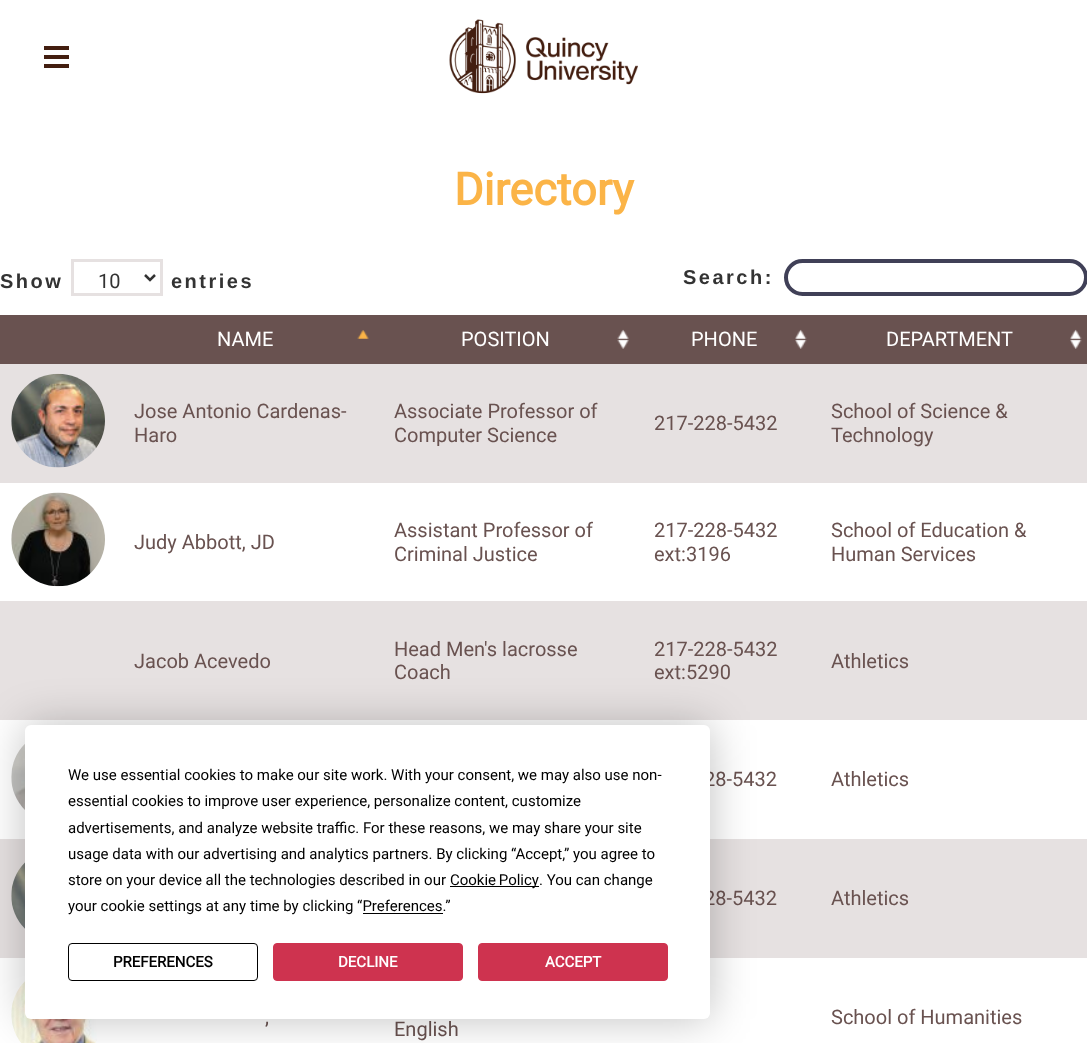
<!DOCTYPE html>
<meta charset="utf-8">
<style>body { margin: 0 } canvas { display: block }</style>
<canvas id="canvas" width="1087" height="1043"></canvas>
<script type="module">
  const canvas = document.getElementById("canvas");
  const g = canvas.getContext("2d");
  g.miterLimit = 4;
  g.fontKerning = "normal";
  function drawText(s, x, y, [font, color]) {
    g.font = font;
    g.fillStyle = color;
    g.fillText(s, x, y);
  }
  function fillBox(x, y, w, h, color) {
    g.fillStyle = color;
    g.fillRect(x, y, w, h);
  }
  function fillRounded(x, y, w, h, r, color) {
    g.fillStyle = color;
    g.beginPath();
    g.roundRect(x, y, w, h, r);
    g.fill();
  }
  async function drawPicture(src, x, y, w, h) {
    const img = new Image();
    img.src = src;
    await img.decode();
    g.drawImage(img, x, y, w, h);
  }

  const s1 = ["bold 45px Roboto", "#FBB447"];
  const s2 = ["bold 20px Liberation Sans", "#333333"];
  const s3 = ["20px Roboto", "#333333"];
  const s4 = ["20px Roboto", "#FFFFFF"];
  const s5 = ["20px Roboto", "#695250"];
  const s6 = ["15px Roboto", "#000000"];
  const s7 = ["bold 15px Roboto", "#000000"];
  const s8 = ["bold 15px Roboto", "#FFFFFF"];

  fillBox(0, 0, 1087, 1043, "#FFFFFF");
  fillBox(44, 46, 25, 4, "#431E10");
  fillBox(44, 55, 25, 4, "#431E10");
  fillBox(44, 64, 25, 4, "#431E10");
  await drawPicture("pic1.png", 449, 19, 189, 75);
  drawText("Directory", 454, 205, s1);
  g.letterSpacing = "2.5px";
  drawText("Show", 0, 288, s2);
  g.strokeStyle = "#E6E1E1";
  g.lineWidth = 3;
  g.strokeRect(72.5, 260.5, 89, 34);
  g.beginPath();
  g.moveTo(145, 275);
  g.lineTo(150, 280);
  g.lineTo(155, 275);
  g.strokeStyle = "#333333";
  g.lineWidth = 2.5;
  g.stroke();
  g.letterSpacing = "0px";
  drawText("10", 98, 288, s3);
  g.letterSpacing = "2.5px";
  drawText("entries", 171, 288, s2);
  drawText("Search:", 683, 284, s2);
  g.beginPath();
  g.roundRect(786, 261, 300, 33, 16.5);
  g.strokeStyle = "#404057";
  g.lineWidth = 4;
  g.stroke();
  fillBox(0, 315, 1087, 49, "#695250");
  await drawPicture("pic2.png", 357, 330, 12, 9);
  g.letterSpacing = "0px";
  drawText("NAME", 217, 346, s4);
  await drawPicture("pic3.png", 617, 329, 12, 20);
  drawText("POSITION", 461, 346, s4);
  await drawPicture("pic4.png", 795, 329, 12, 20);
  drawText("PHONE", 691, 346, s4);
  await drawPicture("pic5.png", 1070, 329, 12, 20);
  drawText("DEPARTMENT", 886, 346, s4);
  fillBox(0, 364, 1087, 119, "#E6E1E1");
  await drawPicture("pic6.png", 11, 373, 94, 95);
  drawText("Jose Antonio Cardenas-", 134, 418, s5);
  drawText("Haro", 134, 442, s5);
  drawText("Associate Professor of", 394, 418, s5);
  drawText("Computer Science", 394, 442, s5);
  drawText("217-228-5432", 654, 430, s5);
  drawText("School of Science &", 831, 418, s5);
  drawText("Technology", 831, 442, s5);
  await drawPicture("pic7.png", 11, 492, 94, 95);
  drawText("Judy Abbott, JD", 134, 549, s5);
  drawText("Assistant Professor of", 394, 537, s5);
  drawText("Criminal Justice", 394, 561, s5);
  drawText("217-228-5432", 654, 537, s5);
  drawText("ext:3196", 654, 561, s5);
  drawText("School of Education &", 831, 537, s5);
  drawText("Human Services", 831, 561, s5);
  fillBox(0, 601, 1087, 119, "#E6E1E1");
  drawText("Jacob Acevedo", 134, 668, s5);
  drawText("Head Men's lacrosse", 394, 656, s5);
  drawText("Coach", 394, 679, s5);
  drawText("217-228-5432", 654, 656, s5);
  drawText("ext:5290", 654, 679, s5);
  drawText("Athletics", 831, 668, s5);
  await drawPicture("pic8.png", 11, 743, 14, 67);
  drawText("28-5432", 704, 786, s5);
  drawText("Athletics", 831, 786, s5);
  fillBox(0, 839, 1087, 119, "#E6E1E1");
  await drawPicture("pic9.png", 11, 862, 14, 67);
  drawText("28-5432", 704, 905, s5);
  drawText("Athletics", 831, 905, s5);
  await drawPicture("pic10.png", 11, 981, 86, 62);
  drawText(",", 265, 1024, s5);
  drawText("English", 394, 1036, s5);
  drawText("School of Humanities", 831, 1024, s5);
  g.fillStyle = "rgba(0, 0, 0, 0.25)";
  g.filter = "blur(22px)";
  g.beginPath();
  g.roundRect(25, 725, 685, 294, 6);
  g.fill();
  g.filter = "none";
  fillRounded(25, 725, 685, 294, 6, "#FFFFFF");
  drawText("We use essential cookies to make our site work. With your consent, we may also use non-", 68, 780, s6);
  drawText("essential cookies to improve user experience, personalize content, customize", 68, 806, s6);
  drawText("advertisements, and analyze website traffic. For these reasons, we may share your site", 68, 833, s6);
  drawText("usage data with our advertising and analytics partners. By clicking “Accept,” you agree to", 68, 859, s6);
  drawText("store on your device all the technologies described in our", 68, 885, s6);
  fillBox(450, 886, 89, 1, "#000000");
  g.wordSpacing = "-1px";
  drawText("Cookie Policy", 450, 885, s6);
  g.wordSpacing = "0px";
  drawText(". You can change", 539, 885, s6);
  drawText("your cookie settings at any time by clicking “Preferences.”", 68, 911, s6);
  fillBox(363, 913, 80, 1, "#000000");
  g.beginPath();
  g.roundRect(68.5, 943.5, 189, 37, 3.5);
  g.strokeStyle = "#000000";
  g.lineWidth = 1;
  g.stroke();
  drawText("PREFERENCES", 113, 967, s7);
  g.fillStyle = "#CE334F";
  g.beginPath();
  g.roundRect(273.5, 943.5, 189, 37, 3.5);
  g.fill();
  g.strokeStyle = "#CE334F";
  g.stroke();
  drawText("DECLINE", 338, 967, s8);
  g.fillStyle = "#CE334F";
  g.beginPath();
  g.roundRect(478.5, 943.5, 189, 37, 3.5);
  g.fill();
  g.stroke();
  drawText("ACCEPT", 545, 967, s8);
</script>
